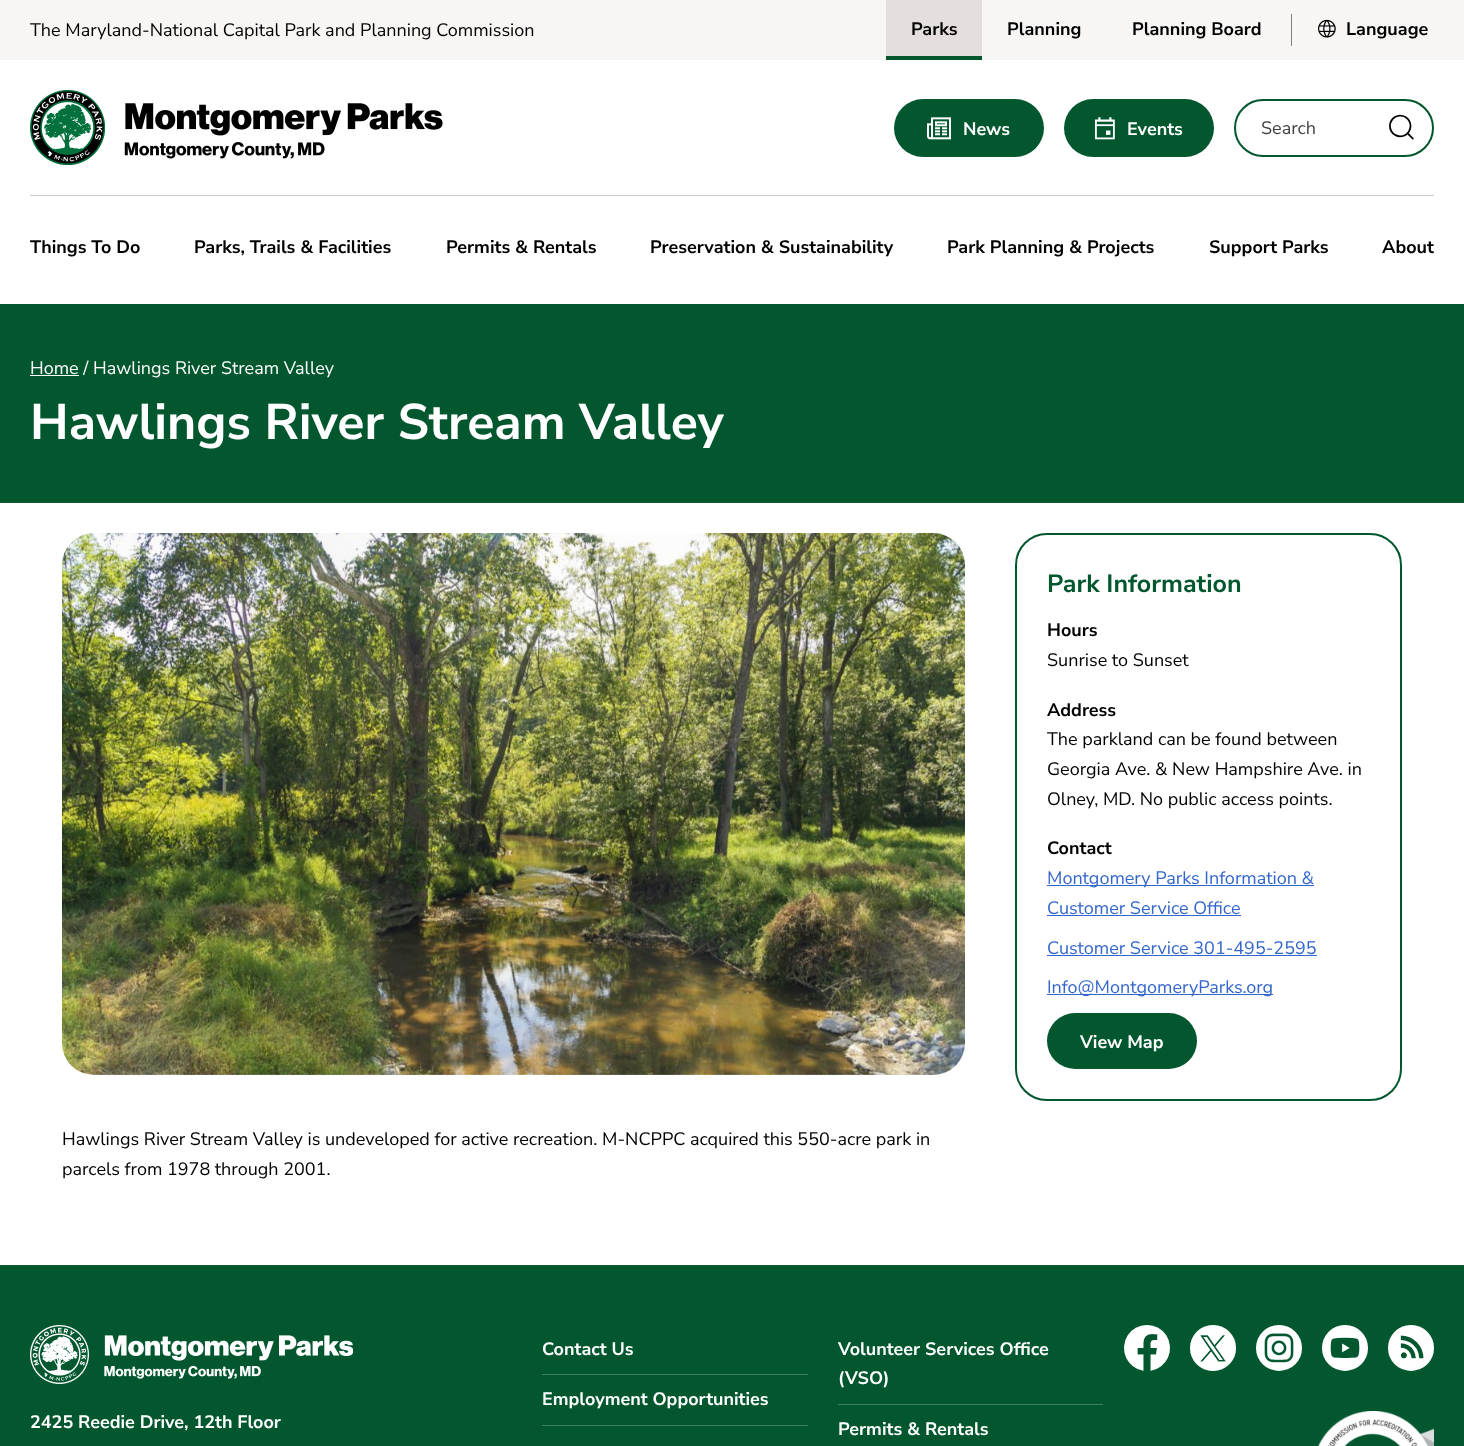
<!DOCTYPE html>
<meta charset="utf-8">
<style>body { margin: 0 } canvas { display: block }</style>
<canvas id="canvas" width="1464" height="1446"></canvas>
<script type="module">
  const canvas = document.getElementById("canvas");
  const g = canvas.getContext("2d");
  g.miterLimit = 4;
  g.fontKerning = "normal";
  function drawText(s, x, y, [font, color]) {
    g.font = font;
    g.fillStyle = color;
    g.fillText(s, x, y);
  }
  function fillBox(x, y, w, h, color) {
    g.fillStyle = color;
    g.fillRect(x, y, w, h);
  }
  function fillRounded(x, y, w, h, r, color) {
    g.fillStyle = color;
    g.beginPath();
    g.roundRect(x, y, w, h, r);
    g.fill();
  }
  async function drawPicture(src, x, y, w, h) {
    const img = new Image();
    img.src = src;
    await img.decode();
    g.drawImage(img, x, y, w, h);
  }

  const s1 = ["18px Nunito Sans", "#000000"];
  const s2 = ["bold 18px Nunito Sans", "#000000"];
  const s3 = ["bold 18px Nunito Sans", "#FFFFFF"];
  const s4 = ["18px Nunito Sans", "#404040"];
  const s5 = ["25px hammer", "#000000"];
  const s6 = ["18px Nunito Sans", "#FFFFFF"];
  const s7 = ["bold 50px Nunito Sans", "#FFFFFF"];
  const s8 = ["bold 25px Nunito Sans", "#02572F"];
  const s9 = ["18px Nunito Sans", "#3366CC"];
  const s10 = ["46px hammer", "#FFFFFF"];

  fillBox(0, 0, 1464, 1446, "#FFFFFF");
  fillBox(0, 0, 1464, 60, "#F8F6F5");
  drawText("The Maryland-National Capital Park and Planning Commission", 30, 36, s1);
  fillBox(886, 0, 96, 56, "#E4DEDC");
  drawText("Parks", 911, 35, s2);
  fillBox(886, 56, 96, 4, "#02572F");
  drawText("Planning", 1007, 35, s2);
  drawText("Planning Board", 1132, 35, s2);
  fillBox(1291, 14, 1, 32, "#7F7F7F");
  await drawPicture("pic1.png", 1318, 19, 18, 19);
  drawText("Language", 1346, 35, s2);
  await drawPicture("pic2.png", 30, 90, 413, 75);
  fillRounded(894, 99, 150, 58, 29, "#02572F");
  await drawPicture("pic3.png", 927, 117, 24, 23);
  drawText("News", 963, 135, s3);
  fillRounded(1064, 99, 150, 58, 29, "#02572F");
  await drawPicture("pic4.png", 1095, 117, 20, 23);
  drawText("Events", 1127, 135, s3);
  g.beginPath();
  g.roundRect(1235, 100, 198, 56, 28);
  g.strokeStyle = "#02572F";
  g.lineWidth = 2;
  g.stroke();
  drawText("Search", 1261, 134, s4);
  drawText("s", 1389, 136, s5);
  fillBox(30, 195, 1404, 1, "#CCCCCC");
  drawText("Things To Do", 30, 253, s2);
  drawText("Parks, Trails & Facilities", 194, 253, s2);
  drawText("Permits & Rentals", 446, 253, s2);
  drawText("Preservation & Sustainability", 650, 253, s2);
  drawText("Park Planning & Projects", 947, 253, s2);
  drawText("Support Parks", 1209, 253, s2);
  drawText("About", 1382, 253, s2);
  fillBox(0, 304, 1464, 199, "#02572F");
  fillBox(30, 375, 49, 1, "#FFFFFF");
  drawText("Home / Hawlings River Stream Valley", 30, 374, s6);
  drawText("Hawlings River Stream Valley", 30, 439, s7);
  g.beginPath();
  g.roundRect(1016, 534, 385, 566, 31);
  g.stroke();
  drawText("Park Information", 1047, 592, s8);
  drawText("Hours", 1047, 636, s2);
  drawText("Sunrise to Sunset", 1047, 666, s1);
  drawText("Address", 1047, 716, s2);
  drawText("The parkland can be found between", 1047, 745, s1);
  drawText("Georgia Ave. & New Hampshire Ave. in", 1047, 775, s1);
  drawText("Olney, MD. No public access points.", 1047, 805, s1);
  drawText("Contact", 1047, 854, s2);
  fillBox(1047, 885, 267, 1, "#3366CC");
  drawText("Montgomery Parks Information &", 1047, 884, s9);
  drawText("Customer Service Office", 1047, 914, s9);
  fillBox(1047, 915, 194, 1, "#3366CC");
  drawText("Customer Service 301-495-2595", 1047, 954, s9);
  fillBox(1047, 955, 270, 1, "#3366CC");
  fillBox(1047, 994, 226, 1, "#3366CC");
  drawText("Info@MontgomeryParks.org", 1047, 993, s9);
  fillRounded(1047, 1013, 150, 56, 28, "#02572F");
  drawText("View Map", 1080, 1048, s3);
  await drawPicture("pic5.png", 62, 533, 903, 542);
  drawText("Hawlings River Stream Valley is undeveloped for active recreation. M-NCPPC acquired this 550-acre park in", 62, 1145, s1);
  drawText("parcels from 1978 through 2001.", 62, 1175, s1);
  fillBox(0, 1265, 1464, 181, "#02572F");
  await drawPicture("pic6.png", 30, 1325, 323, 59);
  drawText("2425 Reedie Drive, 12th Floor", 30, 1428, s3);
  fillBox(542, 1374, 266, 1, "#418163");
  drawText("Contact Us", 542, 1355, s3);
  fillBox(838, 1404, 265, 1, "#418163");
  drawText("Volunteer Services Office", 838, 1355, s3);
  drawText("(VSO)", 838, 1384, s3);
  fillBox(542, 1425, 266, 1, "#418163");
  drawText("Employment Opportunities", 542, 1405, s3);
  drawText("Permits & Rentals", 838, 1435, s3);
  drawText("F", 1124, 1364, s10);
  drawText("T", 1190, 1364, s10);
  drawText("I", 1256, 1364, s10);
  drawText("Y", 1322, 1364, s10);
  drawText("R", 1388, 1364, s10);
  await drawPicture("pic7.png", 1318, 1411, 116, 35);
</script>
